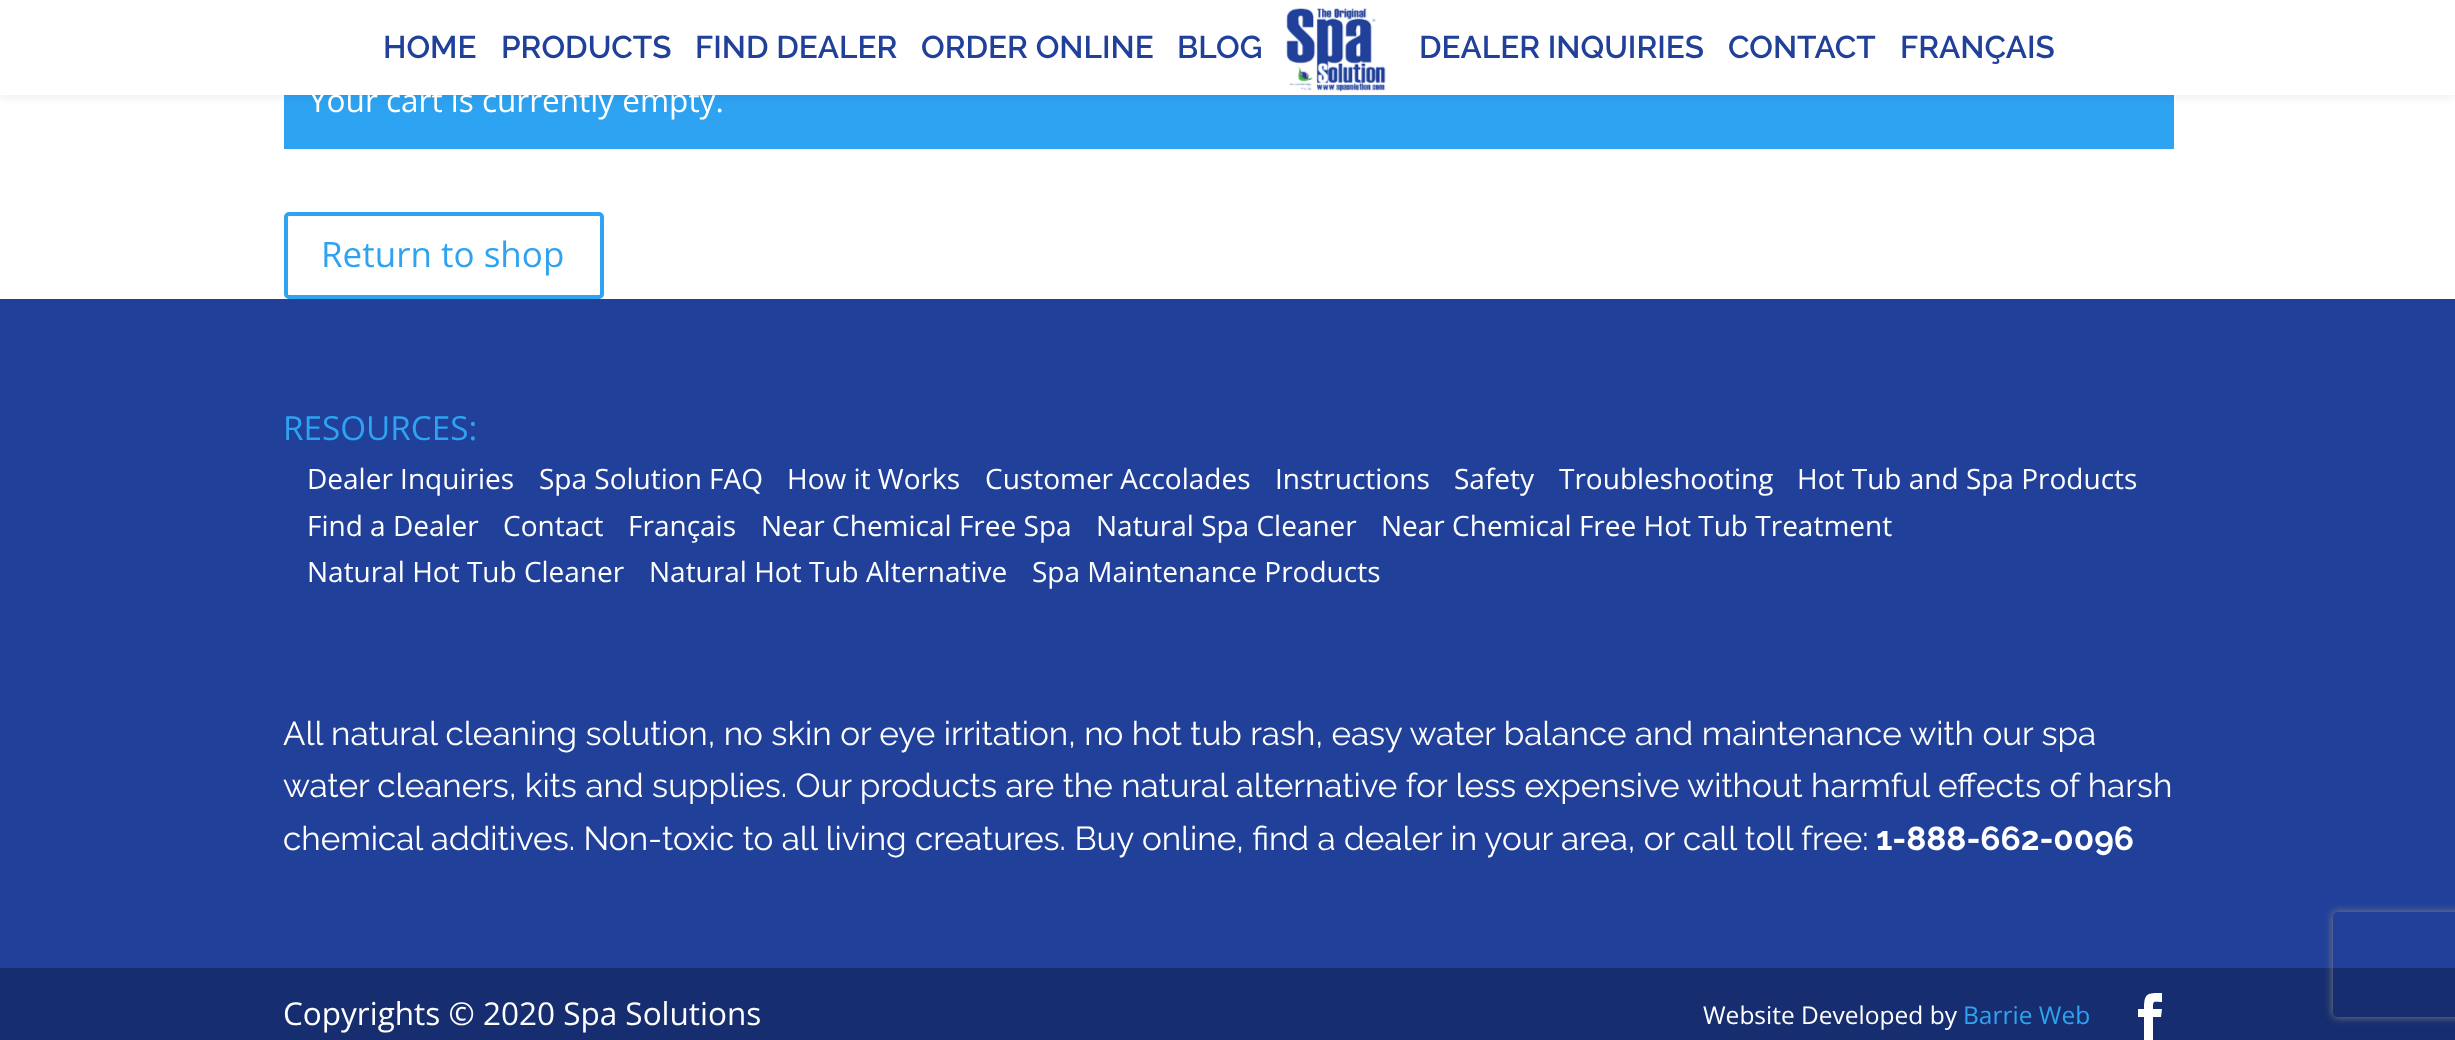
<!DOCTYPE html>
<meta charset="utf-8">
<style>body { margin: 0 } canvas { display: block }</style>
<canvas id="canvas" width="2455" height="1040"></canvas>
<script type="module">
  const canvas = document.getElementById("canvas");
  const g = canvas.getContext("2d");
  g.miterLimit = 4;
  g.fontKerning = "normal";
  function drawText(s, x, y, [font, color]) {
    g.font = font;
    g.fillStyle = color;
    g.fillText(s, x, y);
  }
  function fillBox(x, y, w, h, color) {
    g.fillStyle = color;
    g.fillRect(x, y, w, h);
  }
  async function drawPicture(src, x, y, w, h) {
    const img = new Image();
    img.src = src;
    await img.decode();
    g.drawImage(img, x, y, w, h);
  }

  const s1 = ["600 31.5px Raleway", "#21409A"];
  const s2 = ["31.5px Open Sans", "#FFFFFF"];
  const s3 = ["35px Open Sans", "#2EA3F2"];
  const s4 = ["33.25px Open Sans", "#2EA3F2"];
  const s5 = ["28px Open Sans", "#FFFFFF"];
  const s6 = ["33.25px Raleway", "#FFFFFF"];
  const s7 = ["bold 33.25px Raleway", "#FFFFFF"];
  const s8 = ["24.5px Open Sans", "#FFFFFF"];
  const s9 = ["24.5px Open Sans", "#2EA3F2"];

  fillBox(0, 0, 2455, 1040, "#FFFFFF");
  fillBox(284, 95, 1890, 54, "#2EA3F2");
  g.fillStyle = "rgba(0, 0, 0, 0.1)";
  g.filter = "blur(6px)";
  g.beginPath();
  g.rect(0, 0, 2455, 95);
  g.fill();
  g.filter = "none";
  fillBox(0, 0, 2455, 95, "#FFFFFF");
  drawText("HOME", 383, 58, s1);
  drawText("PRODUCTS", 501, 58, s1);
  drawText("FIND DEALER", 695, 58, s1);
  drawText("ORDER ONLINE", 921, 58, s1);
  drawText("BLOG", 1177, 58, s1);
  await drawPicture("pic1.png", 1286, 8, 100, 84);
  drawText("DEALER INQUIRIES", 1419, 58, s1);
  drawText("CONTACT", 1728, 58, s1);
  drawText("FRANÇAIS", 1900, 58, s1);
  drawText("Your cart is currently empty.", 309, 112, s2);
  g.beginPath();
  g.roundRect(286, 214, 316, 83, 3);
  g.strokeStyle = "#2EA3F2";
  g.lineWidth = 4;
  g.stroke();
  drawText("Return to shop", 321, 267, s3);
  fillBox(0, 299, 2455, 669, "#21409A");
  drawText("RESOURCES:", 283, 440, s4);
  drawText("Dealer Inquiries", 307, 489, s5);
  drawText("Spa Solution FAQ", 539, 489, s5);
  drawText("How it Works", 787, 489, s5);
  drawText("Customer Accolades", 985, 489, s5);
  drawText("Instructions", 1275, 489, s5);
  drawText("Safety", 1454, 489, s5);
  drawText("Troubleshooting", 1559, 489, s5);
  drawText("Hot Tub and Spa Products", 1797, 489, s5);
  drawText("Find a Dealer", 307, 536, s5);
  drawText("Contact", 503, 536, s5);
  drawText("Français", 628, 536, s5);
  drawText("Near Chemical Free Spa", 761, 536, s5);
  drawText("Natural Spa Cleaner", 1096, 536, s5);
  drawText("Near Chemical Free Hot Tub Treatment", 1381, 536, s5);
  drawText("Natural Hot Tub Cleaner", 307, 582, s5);
  drawText("Natural Hot Tub Alternative", 649, 582, s5);
  drawText("Spa Maintenance Products", 1032, 582, s5);
  drawText("All natural cleaning solution, no skin or eye irritation, no hot tub rash, easy water balance and maintenance with our spa", 283, 745, s6);
  drawText("water cleaners, kits and supplies. Our products are the natural alternative for less expensive without harmful effects of harsh", 283, 797, s6);
  drawText("chemical additives. Non-toxic to all living creatures. Buy online, find a dealer in your area, or call toll free:", 283, 850, s6);
  drawText("1-888-662-0096", 1876, 850, s7);
  fillBox(0, 968, 2455, 72, "#162D6F");
  drawText("Copyrights © 2020 Spa Solutions", 283, 1025, s2);
  drawText("Website Developed by", 1703, 1024, s8);
  drawText("Barrie Web", 1963, 1024, s9);
  g.fillStyle = "#FFFFFF";
  g.beginPath();
  g.moveTo(2144, 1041);
  g.lineTo(2153, 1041);
  g.lineTo(2153, 1017);
  g.lineTo(2161, 1017);
  g.lineTo(2162, 1009);
  g.lineTo(2153, 1009);
  g.bezierCurveTo(2153, 1000, 2153, 1002, 2162, 1002);
  g.lineTo(2162, 993);
  g.bezierCurveTo(2147, 993, 2144, 993, 2144, 1009);
  g.lineTo(2138, 1009);
  g.lineTo(2138, 1017);
  g.lineTo(2144, 1017);
  g.closePath();
  g.fill();
  g.save();
  g.beginPath();
  g.moveTo(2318, 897);
  g.lineTo(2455, 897);
  g.lineTo(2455, 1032);
  g.lineTo(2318, 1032);
  g.closePath();
  g.moveTo(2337, 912);
  g.lineTo(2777, 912);
  g.bezierCurveTo(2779, 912, 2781, 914, 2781, 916);
  g.lineTo(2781, 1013);
  g.bezierCurveTo(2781, 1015, 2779, 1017, 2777, 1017);
  g.lineTo(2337, 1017);
  g.bezierCurveTo(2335, 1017, 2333, 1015, 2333, 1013);
  g.lineTo(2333, 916);
  g.bezierCurveTo(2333, 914, 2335, 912, 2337, 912);
  g.closePath();
  g.clip("evenodd");
  g.fillStyle = "#808080";
  g.filter = "blur(4.5px)";
  g.beginPath();
  g.roundRect(2333, 912, 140, 105, 4);
  g.fill();
  g.filter = "none";
  g.restore();
</script>
